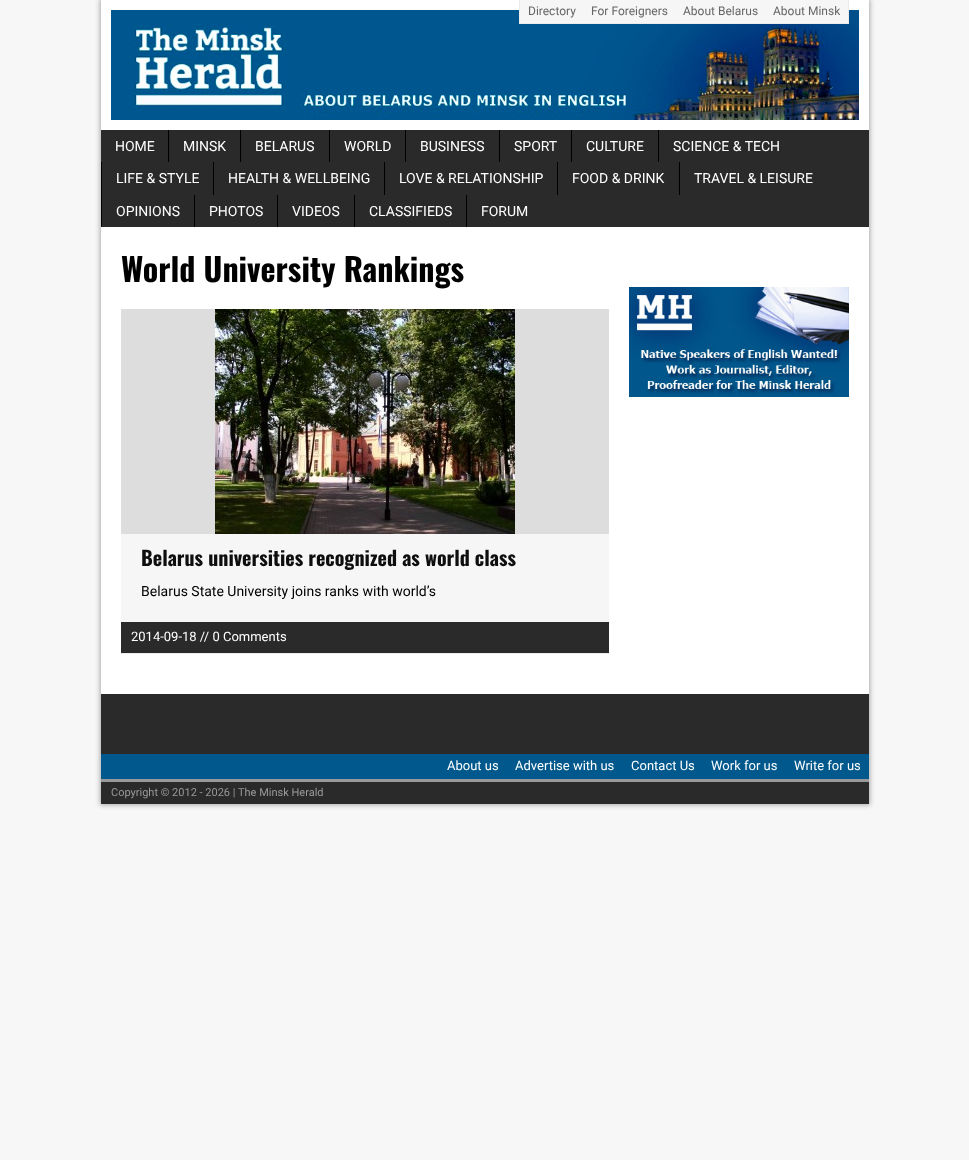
<!DOCTYPE html>
<meta charset="utf-8">
<style>body { margin: 0 } canvas { display: block }</style>
<canvas id="canvas" width="969" height="1160"></canvas>
<script type="module">
  const canvas = document.getElementById("canvas");
  const g = canvas.getContext("2d");
  g.miterLimit = 4;
  g.fontKerning = "normal";
  function drawText(s, x, y, [font, color]) {
    g.font = font;
    g.fillStyle = color;
    g.fillText(s, x, y);
  }
  function fillBox(x, y, w, h, color) {
    g.fillStyle = color;
    g.fillRect(x, y, w, h);
  }
  async function drawPicture(src, x, y, w, h) {
    const img = new Image();
    img.src = src;
    await img.decode();
    g.drawImage(img, x, y, w, h);
  }

  const s1 = ["12px Roboto", "#666666"];
  const s2 = ["14px Roboto", "#FFFFFF"];
  const s3 = ["bold 32px Oswald", "#000000"];
  const s4 = ["bold 20px Oswald", "#0F0E0E"];
  const s5 = ["14px Roboto", "#000000"];
  const s6 = ["13px Roboto", "#FFFFFF"];
  const s7 = ["11px Roboto", "#999999"];

  fillBox(0, 0, 969, 1160, "#F7F7F7");
  g.fillStyle = "#A8A8A8";
  g.filter = "blur(2.5px)";
  g.beginPath();
  g.rect(100, -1, 770, 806);
  g.fill();
  g.filter = "none";
  fillBox(101, 0, 768, 130, "#FFFFFF");
  await drawPicture("pic1.png", 111, 10, 748, 110);
  fillBox(520, 0, 328, 23, "#F6F6F6");
  fillBox(848, 0, 1, 24, "#EBEBEB");
  fillBox(519, 23, 330, 1, "#EBEBEB");
  fillBox(519, 0, 1, 24, "#EBEBEB");
  drawText("Directory", 528, 15, s1);
  drawText("For Foreigners", 591, 15, s1);
  drawText("About Belarus", 683, 15, s1);
  drawText("About Minsk", 773, 15, s1);
  fillBox(101, 130, 768, 97, "#2A2A2A");
  drawText("HOME", 115, 151, s2);
  fillBox(168, 130, 1, 32, "#000000");
  drawText("MINSK", 183, 151, s2);
  fillBox(240, 130, 1, 32, "#000000");
  drawText("BELARUS", 255, 151, s2);
  fillBox(329, 130, 1, 32, "#000000");
  drawText("WORLD", 344, 151, s2);
  fillBox(405, 130, 1, 32, "#000000");
  drawText("BUSINESS", 420, 151, s2);
  fillBox(499, 130, 1, 32, "#000000");
  drawText("SPORT", 514, 151, s2);
  fillBox(571, 130, 1, 32, "#000000");
  drawText("CULTURE", 586, 151, s2);
  fillBox(658, 130, 1, 32, "#000000");
  drawText("SCIENCE & TECH", 673, 151, s2);
  fillBox(101, 162, 1, 65, "#000000");
  drawText("LIFE & STYLE", 116, 183, s2);
  fillBox(213, 162, 1, 33, "#000000");
  drawText("HEALTH & WELLBEING", 228, 183, s2);
  fillBox(384, 162, 1, 33, "#000000");
  drawText("LOVE & RELATIONSHIP", 399, 183, s2);
  fillBox(557, 162, 1, 33, "#000000");
  drawText("FOOD & DRINK", 572, 183, s2);
  fillBox(679, 162, 1, 33, "#000000");
  drawText("TRAVEL & LEISURE", 694, 183, s2);
  drawText("OPINIONS", 116, 216, s2);
  fillBox(194, 195, 1, 32, "#000000");
  drawText("PHOTOS", 209, 216, s2);
  fillBox(277, 195, 1, 32, "#000000");
  drawText("VIDEOS", 292, 216, s2);
  fillBox(354, 195, 1, 32, "#000000");
  drawText("CLASSIFIEDS", 369, 216, s2);
  fillBox(466, 195, 1, 32, "#000000");
  drawText("FORUM", 481, 216, s2);
  fillBox(101, 227, 768, 467, "#FFFFFF");
  drawText("World University Rankings", 121, 282, s3);
  fillBox(121, 534, 488, 88, "#F6F6F6");
  fillBox(121, 653, 488, 1, "#EBEBEB");
  fillBox(121, 309, 488, 225, "#DDDDDD");
  await drawPicture("pic2.png", 215, 309, 300, 225);
  drawText("Belarus universities recognized as world class", 141, 566, s4);
  drawText("Belarus State University joins ranks with world’s", 141, 596, s5);
  fillBox(121, 622, 488, 31, "#2A2A2A");
  drawText("2014-09-18 // 0 Comments", 131, 641, s6);
  await drawPicture("pic3.png", 629, 287, 220, 110);
  fillBox(101, 694, 768, 60, "#2A2A2A");
  fillBox(101, 754, 768, 25, "#00588C");
  drawText("About us", 447, 770, s6);
  drawText("Advertise with us", 515, 770, s6);
  drawText("Contact Us", 631, 770, s6);
  drawText("Work for us", 711, 770, s6);
  drawText("Write for us", 794, 770, s6);
  fillBox(101, 782, 768, 22, "#2A2A2A");
  fillBox(101, 779, 768, 3, "#999999");
  drawText("Copyright © 2012 - 2026 | The Minsk Herald", 111, 796, s7);
</script>
